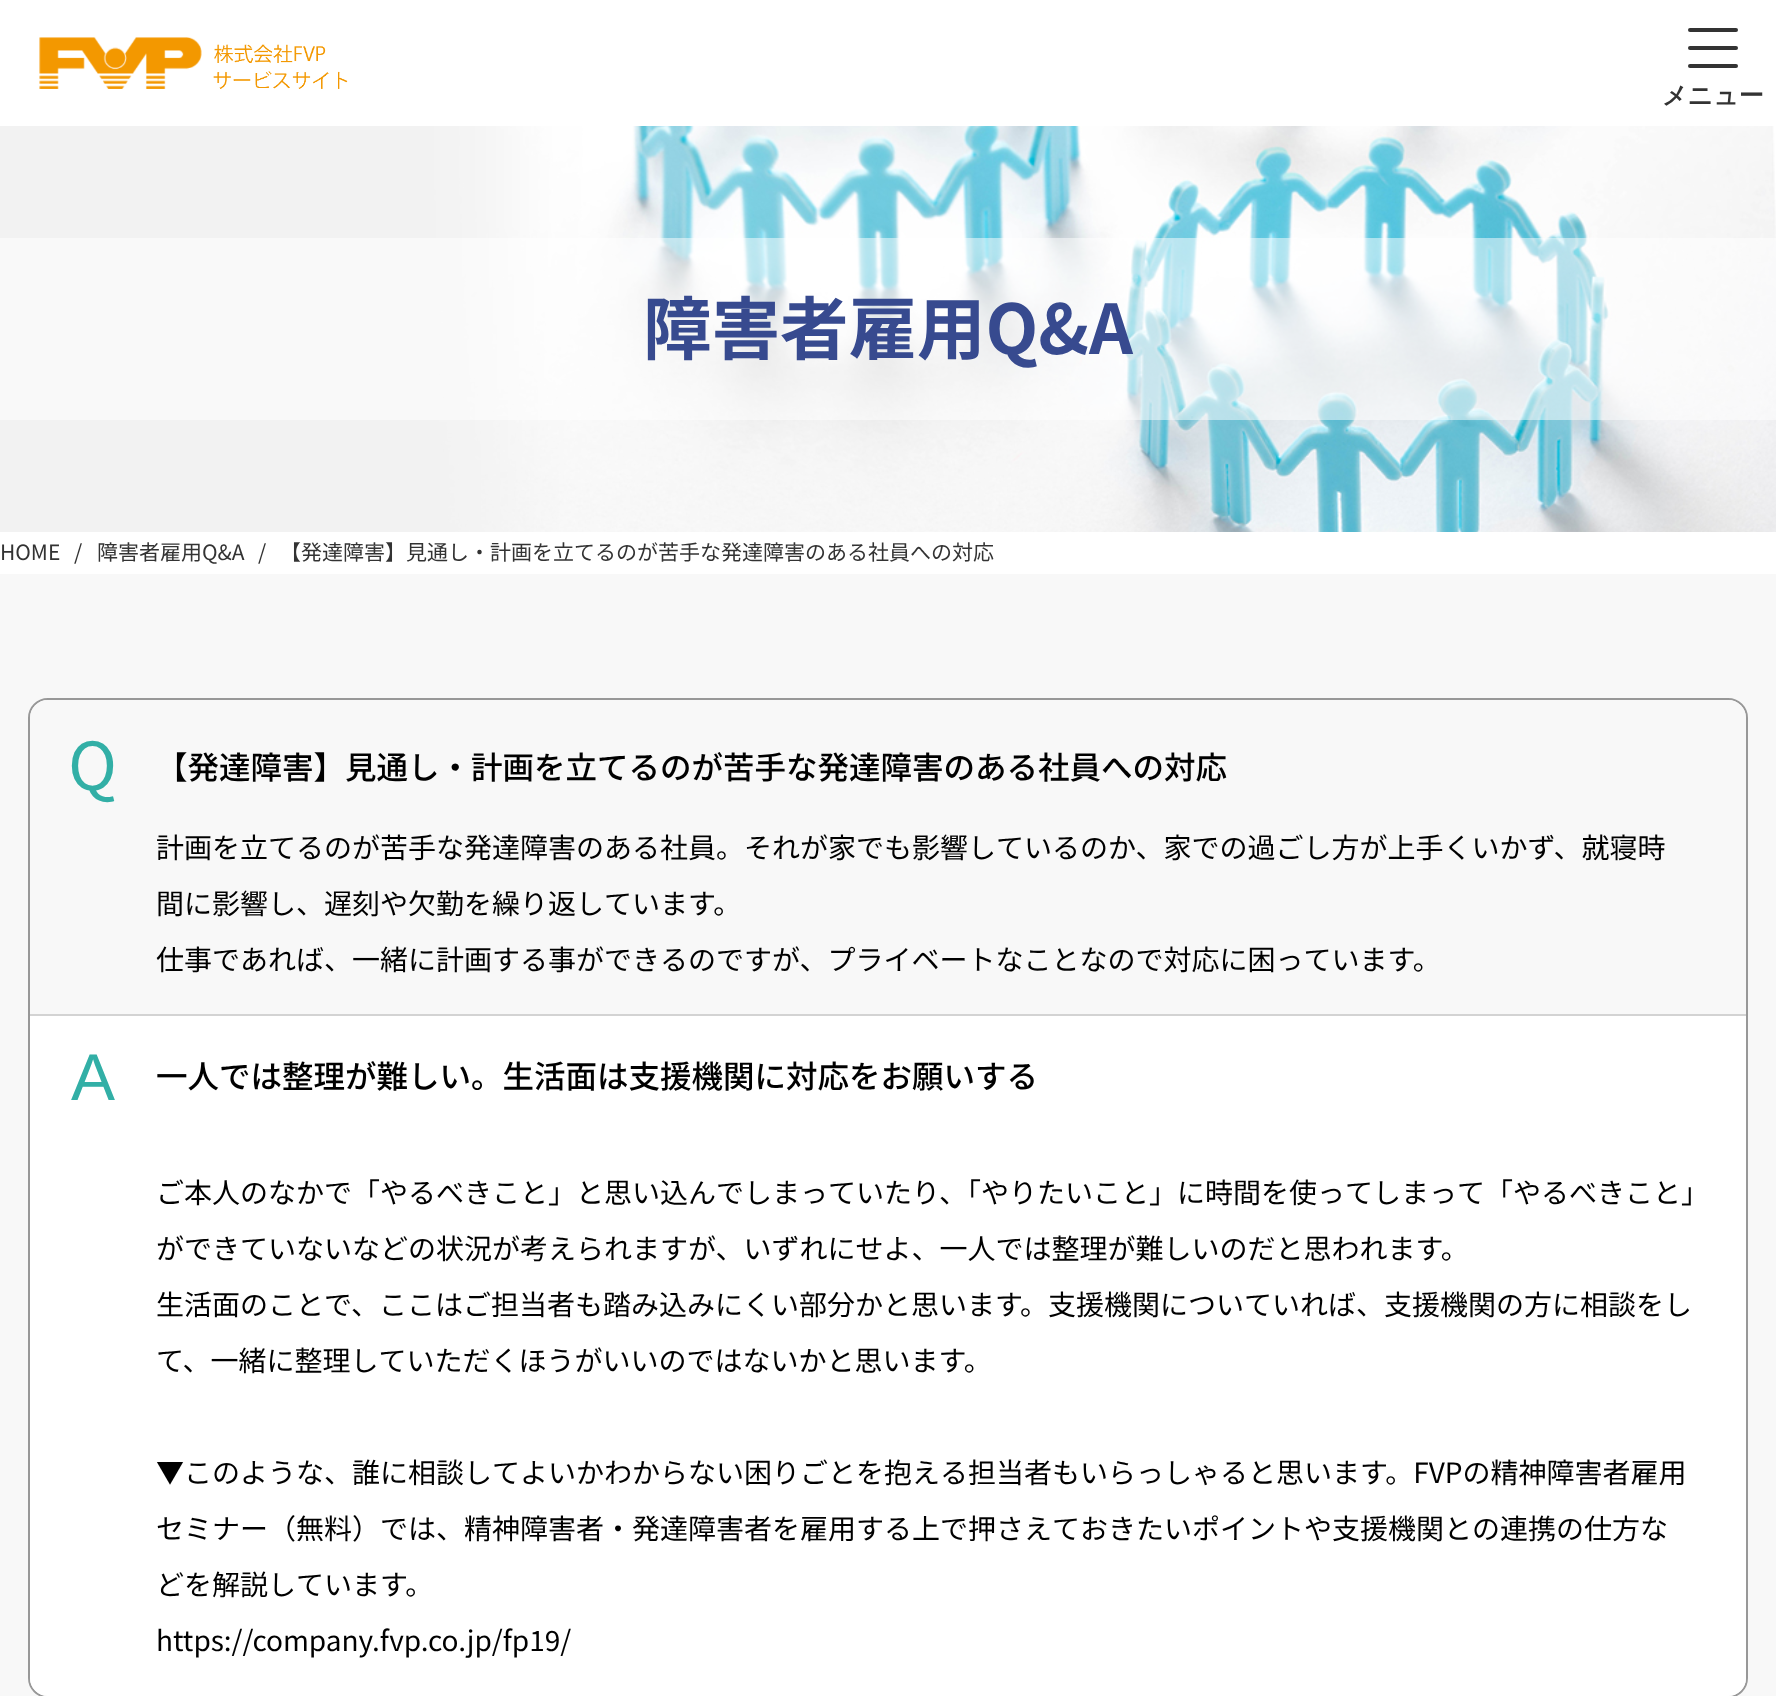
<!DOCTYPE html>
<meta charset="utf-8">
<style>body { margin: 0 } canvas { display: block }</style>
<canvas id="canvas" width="1776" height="1696"></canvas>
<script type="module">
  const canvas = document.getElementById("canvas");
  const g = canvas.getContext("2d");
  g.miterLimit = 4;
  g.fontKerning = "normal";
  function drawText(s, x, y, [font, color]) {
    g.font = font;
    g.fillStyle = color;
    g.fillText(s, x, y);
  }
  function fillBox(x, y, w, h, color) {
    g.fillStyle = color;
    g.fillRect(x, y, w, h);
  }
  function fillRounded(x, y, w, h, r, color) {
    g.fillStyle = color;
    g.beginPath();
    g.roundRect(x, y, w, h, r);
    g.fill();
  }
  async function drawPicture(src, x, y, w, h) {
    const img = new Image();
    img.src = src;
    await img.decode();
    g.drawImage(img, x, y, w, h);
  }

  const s1 = ["bold 25px WenQuanYi Zen Hei", "#333333"];
  const s2 = ["bold 68.5px Noto Sans JP", "#374A8F"];
  const s3 = ["21px Noto Sans JP", "#333333"];
  const s4 = ["66px Noto Sans JP", "#32AFA6"];
  const s5 = ["500 31.5px Noto Sans JP", "#000000"];
  const s6 = ["28px Noto Sans JP", "#000000"];
  const s7 = ["66px Liberation Sans", "#32AFA6"];

  fillBox(0, 0, 1776, 1696, "#FFFFFF");
  await drawPicture("pic1.png", 39, 37, 309, 52);
  fillRounded(1688, 28, 50, 4, 2, "#333333");
  fillRounded(1688, 46, 50, 4, 2, "#333333");
  fillRounded(1688, 64, 50, 4, 2, "#333333");
  drawText("メニュー", 1662, 104, s1);
  await drawPicture("pic2.png", 0, 126, 1776, 406);
  fillBox(0, 238, 1776, 182, "rgba(255, 255, 255, 0.5)");
  drawText("障害者雇用Q&A", 643, 354, s2);
  drawText("HOME", 0, 560, s3);
  drawText("/", 74, 560, s3);
  drawText("障害者雇用Q&A", 97, 560, s3);
  drawText("/", 258, 560, s3);
  drawText("【発達障害】見通し・計画を立てるのが苦手な発達障害のある社員への対応", 280, 560, s3);
  fillBox(0, 574, 1776, 1122, "#F8F8F8");
  g.beginPath();
  g.roundRect(29, 699, 1718, 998, 19);
  g.strokeStyle = "#989898";
  g.lineWidth = 2;
  g.stroke();
  g.beginPath();
  g.roundRect(30, 700, 1716, 316, [18, 18, 0, 0]);
  g.fill();
  fillBox(30, 1014, 1716, 2, "#D3D3D3");
  drawText("Q", 68, 790, s4);
  drawText("【発達障害】見通し・計画を立てるのが苦手な発達障害のある社員への対応", 156, 779, s5);
  drawText("計画を立てるのが苦手な発達障害のある社員。それが家でも影響しているのか、家での過ごし方が上手くいかず、就寝時", 156, 858, s6);
  drawText("間に影響し、遅刻や欠勤を繰り返しています。", 156, 914, s6);
  drawText("仕事であれば、一緒に計画する事ができるのですが、プライベートなことなので対応に困っています。", 156, 970, s6);
  g.fillStyle = "#FFFFFF";
  g.beginPath();
  g.roundRect(30, 1016, 1716, 680, [0, 0, 18, 18]);
  g.fill();
  drawText("A", 71, 1100, s7);
  drawText("一人では整理が難しい。生活面は支援機関に対応をお願いする", 156, 1088, s5);
  drawText("ご本人のなかで「やるべきこと」と思い込んでしまっていたり、「やりたいこと」に時間を使ってしまって「やるべきこと」", 156, 1203, s6);
  drawText("ができていないなどの状況が考えられますが、いずれにせよ、一人では整理が難しいのだと思われます。", 156, 1259, s6);
  drawText("生活面のことで、ここはご担当者も踏み込みにくい部分かと思います。支援機関についていれば、支援機関の方に相談をし", 156, 1315, s6);
  drawText("て、一緒に整理していただくほうがいいのではないかと思います。", 156, 1371, s6);
  drawText("▼このような、誰に相談してよいかわからない困りごとを抱える担当者もいらっしゃると思います。FVPの精神障害者雇用", 156, 1483, s6);
  drawText("セミナー（無料）では、精神障害者・発達障害者を雇用する上で押さえておきたいポイントや支援機関との連携の仕方な", 156, 1539, s6);
  drawText("どを解説しています。", 156, 1595, s6);
  drawText("https://company.fvp.co.jp/fp19/", 156, 1651, s6);
</script>
